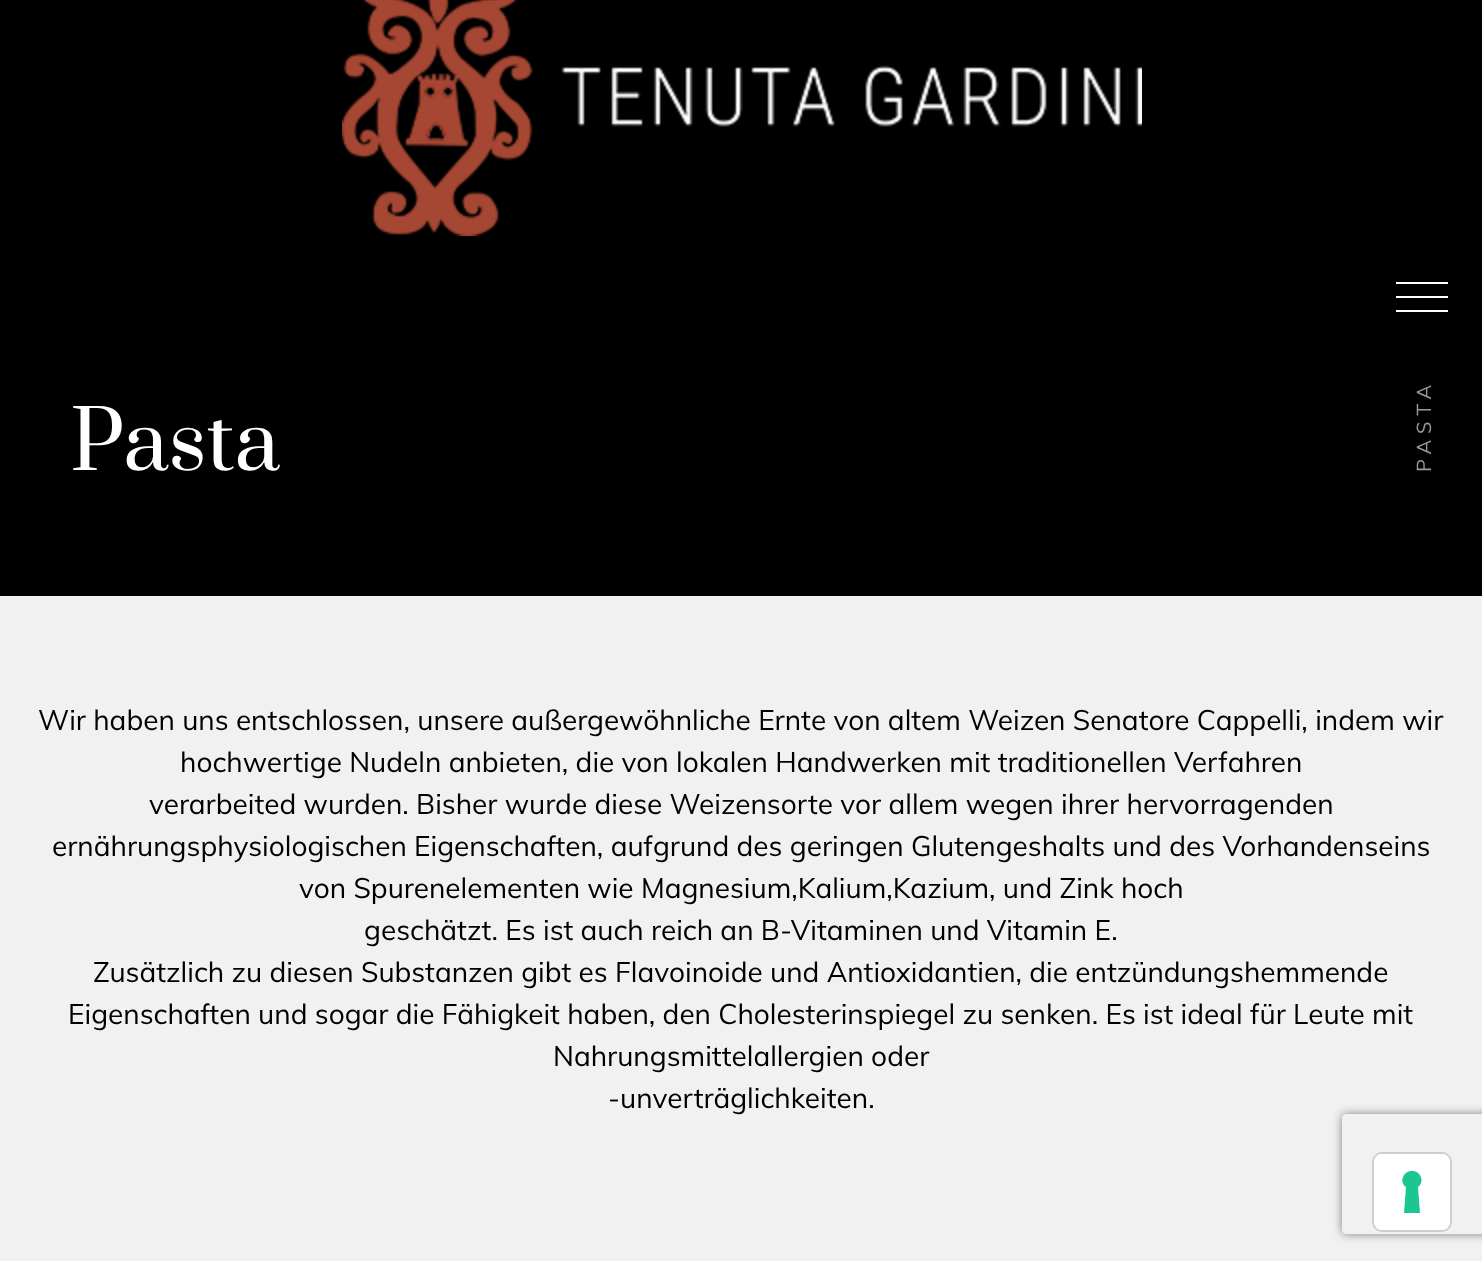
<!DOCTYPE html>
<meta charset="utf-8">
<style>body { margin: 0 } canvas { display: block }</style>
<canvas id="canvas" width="1482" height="1261"></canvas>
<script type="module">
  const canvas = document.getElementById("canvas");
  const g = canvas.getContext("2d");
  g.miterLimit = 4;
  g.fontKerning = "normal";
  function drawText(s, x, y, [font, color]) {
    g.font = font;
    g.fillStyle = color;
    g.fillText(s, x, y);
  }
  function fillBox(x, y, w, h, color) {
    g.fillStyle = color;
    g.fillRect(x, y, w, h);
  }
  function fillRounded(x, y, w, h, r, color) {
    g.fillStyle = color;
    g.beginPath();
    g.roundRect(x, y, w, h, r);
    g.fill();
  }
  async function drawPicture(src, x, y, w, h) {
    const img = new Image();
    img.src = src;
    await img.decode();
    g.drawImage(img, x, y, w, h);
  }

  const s1 = ["80px Prata", "#FFFFFF"];
  const s2 = ["28px Muli", "#000000"];

  fillBox(0, 0, 1482, 1261, "#F1F1F1");
  fillBox(0, 0, 1482, 596, "#000000");
  fillBox(1396, 282, 52, 2, "#FFFFFF");
  fillBox(1396, 296, 52, 2, "#FFFFFF");
  fillBox(1396, 310, 52, 2, "#FFFFFF");
  g.letterSpacing = "6px";
  g.font = "20px Muli";
  g.fillStyle = "#999999";
  g.save();
  g.translate(1431, 472);
  g.rotate(-90 * Math.PI / 180);
  g.fillText("PASTA", 0, 0);
  g.restore();
  await drawPicture("pic1.png", 342, 0, 800, 236);
  g.letterSpacing = "0px";
  drawText("Pasta", 70, 470, s1);
  drawText("Wir haben uns entschlossen, unsere außergewöhnliche Ernte von altem Weizen Senatore Cappelli, indem wir", 38, 730, s2);
  drawText("hochwertige Nudeln anbieten, die von lokalen Handwerken mit traditionellen Verfahren", 180, 772, s2);
  drawText("verarbeited wurden. Bisher wurde diese Weizensorte vor allem wegen ihrer hervorragenden", 149, 814, s2);
  drawText("ernährungsphysiologischen Eigenschaften, aufgrund des geringen Glutengeshalts und des Vorhandenseins", 52, 856, s2);
  drawText("von Spurenelementen wie Magnesium,Kalium,Kazium, und Zink hoch", 299, 898, s2);
  drawText("geschätzt. Es ist auch reich an B-Vitaminen und Vitamin E.", 364, 940, s2);
  drawText("Zusätzlich zu diesen Substanzen gibt es Flavoinoide und Antioxidantien, die entzündungshemmende", 93, 982, s2);
  drawText("Eigenschaften und sogar die Fähigkeit haben, den Cholesterinspiegel zu senken. Es ist ideal für Leute mit", 68, 1024, s2);
  drawText("Nahrungsmittelallergien oder", 553, 1066, s2);
  drawText("-unverträglichkeiten.", 608, 1108, s2);
  g.save();
  g.beginPath();
  g.moveTo(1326, 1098);
  g.lineTo(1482, 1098);
  g.lineTo(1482, 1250);
  g.lineTo(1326, 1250);
  g.closePath();
  g.moveTo(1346, 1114);
  g.lineTo(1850, 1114);
  g.bezierCurveTo(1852, 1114, 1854, 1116, 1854, 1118);
  g.lineTo(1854, 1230);
  g.bezierCurveTo(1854, 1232, 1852, 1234, 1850, 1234);
  g.lineTo(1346, 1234);
  g.bezierCurveTo(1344, 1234, 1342, 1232, 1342, 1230);
  g.lineTo(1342, 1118);
  g.bezierCurveTo(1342, 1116, 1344, 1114, 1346, 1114);
  g.closePath();
  g.clip("evenodd");
  g.fillStyle = "#808080";
  g.filter = "blur(5px)";
  g.beginPath();
  g.roundRect(1342, 1114, 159, 120, 4);
  g.fill();
  g.filter = "none";
  g.restore();
  g.beginPath();
  g.roundRect(1373, 1153, 78, 78, 9);
  g.strokeStyle = "#CDCDCD";
  g.lineWidth = 2;
  g.stroke();
  fillRounded(1374, 1154, 76, 76, 8, "#FFFFFF");
  g.fillStyle = "#1CC691";
  g.beginPath();
  g.moveTo(1412, 1171);
  g.bezierCurveTo(1421, 1171, 1425, 1182, 1418, 1187);
  g.lineTo(1420, 1213);
  g.lineTo(1404, 1213);
  g.lineTo(1406, 1187);
  g.bezierCurveTo(1399, 1182, 1403, 1171, 1412, 1171);
  g.closePath();
  g.fill("evenodd");
</script>
